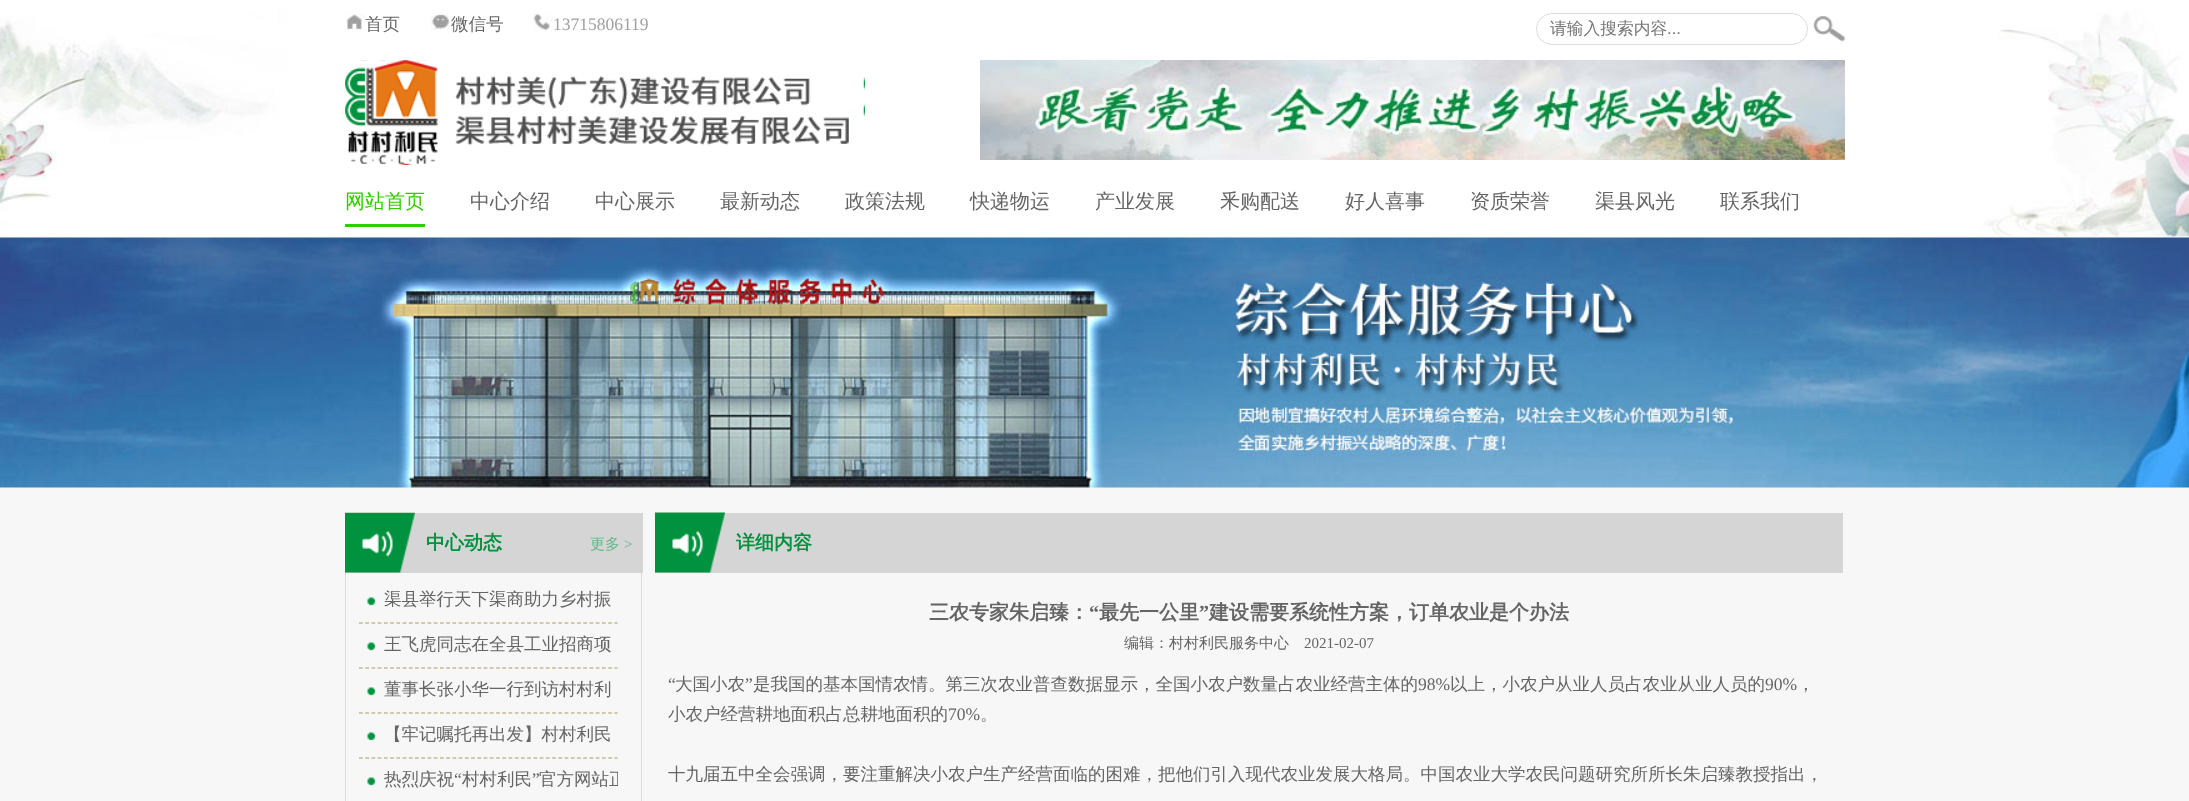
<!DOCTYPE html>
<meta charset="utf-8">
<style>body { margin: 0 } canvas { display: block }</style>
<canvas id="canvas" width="2189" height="801"></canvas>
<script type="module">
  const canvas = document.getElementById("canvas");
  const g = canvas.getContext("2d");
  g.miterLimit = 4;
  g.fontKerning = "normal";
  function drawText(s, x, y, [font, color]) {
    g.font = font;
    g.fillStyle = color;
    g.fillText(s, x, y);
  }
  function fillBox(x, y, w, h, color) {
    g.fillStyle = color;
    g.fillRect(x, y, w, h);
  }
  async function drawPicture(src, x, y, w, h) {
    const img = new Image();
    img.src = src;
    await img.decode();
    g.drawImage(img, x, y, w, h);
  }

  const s1 = ["500 17.5px WenQuanYi Zen Hei", "#656565"];
  const s2 = ["17.5px Liberation Serif", "#A0A0A0"];
  const s3 = ["500 16.75px WenQuanYi Zen Hei", "#757575"];
  const s4 = ["16.75px Liberation Sans", "#757575"];
  const s5 = ["500 20px WenQuanYi Zen Hei", "#33CC00"];
  const s6 = ["500 20px WenQuanYi Zen Hei", "#656565"];
  const s7 = ["bold 19px WenQuanYi Zen Hei", "#00923F"];
  const s8 = ["500 15px WenQuanYi Zen Hei", "#65B889"];
  const s9 = ["15px Liberation Serif", "#65B889"];
  const s10 = ["17.5px Liberation Serif", "#656565"];
  const s11 = ["bold 20px WenQuanYi Zen Hei", "#656565"];
  const s12 = ["bold 20px Liberation Serif", "#656565"];
  const s13 = ["500 15px WenQuanYi Zen Hei", "#656565"];
  const s14 = ["15px Liberation Serif", "#656565"];

  fillBox(0, 0, 2189, 801, "#F7F7F7");
  await drawPicture("pic1.png", 0, 0, 2189, 238);
  await drawPicture("pic2.png", 345, 14, 20, 16);
  drawText("首页", 365, 30, s1);
  await drawPicture("pic3.png", 430, 14, 20, 16);
  drawText("微信号", 451, 30, s1);
  await drawPicture("pic4.png", 533, 13, 20, 17);
  drawText("13715806119", 553, 30, s2);
  g.beginPath();
  g.roundRect(1536.5, 13.5, 271, 31, 15.5);
  g.strokeStyle = "#DCDCDC";
  g.stroke();
  drawText("请输入搜索内容", 1550, 34, s3);
  drawText("...", 1667, 34, s4);
  await drawPicture("pic5.png", 1813, 16, 32, 26);
  await drawPicture("pic6.png", 345, 60, 520, 105);
  await drawPicture("pic7.png", 980, 60, 865, 100);
  fillBox(345, 224, 80, 3, "#33CC00");
  drawText("网站首页", 345, 208, s5);
  drawText("中心介绍", 470, 208, s6);
  drawText("中心展示", 595, 208, s6);
  drawText("最新动态", 720, 208, s6);
  drawText("政策法规", 845, 208, s6);
  drawText("快递物运", 970, 208, s6);
  drawText("产业发展", 1095, 208, s6);
  drawText("釆购配送", 1220, 208, s6);
  drawText("好人喜事", 1345, 208, s6);
  drawText("资质荣誉", 1470, 208, s6);
  drawText("渠县风光", 1595, 208, s6);
  drawText("联系我们", 1720, 208, s6);
  await drawPicture("pic8.png", 0, 237, 2189, 251);
  fillBox(345, 513, 298, 60, "#D5D5D5");
  await drawPicture("pic9.png", 345, 512, 70, 61);
  drawText("中心动态", 426, 549, s7);
  drawText("更多", 590, 549, s8);
  drawText(">", 624, 549, s9);
  fillBox(641, 573, 1, 228, "#DCDCDC");
  fillBox(345, 573, 1, 228, "#DCDCDC");
  await drawPicture("pic10.png", 367, 597, 9, 9);
  g.wordSpacing = "-1px";
  drawText("渠县举行天下渠商助力乡村振", 384, 605, s1);
  g.beginPath();
  g.moveTo(359, 623);
  g.lineTo(617.5, 623);
  g.strokeStyle = "#B09964";
  g.lineWidth = 1.2;
  g.setLineDash([3.75, 2.48]);
  g.stroke();
  await drawPicture("pic10.png", 367, 642, 9, 9);
  g.wordSpacing = "0px";
  drawText("王飞虎同志在全县工业招商项", 384, 650, s1);
  g.beginPath();
  g.moveTo(359, 668);
  g.lineTo(617.5, 668);
  g.stroke();
  await drawPicture("pic10.png", 367, 687, 9, 9);
  drawText("董事长张小华一行到访村村利", 384, 695, s1);
  g.beginPath();
  g.moveTo(359, 713);
  g.lineTo(617.5, 713);
  g.stroke();
  await drawPicture("pic10.png", 367, 732, 9, 9);
  drawText("【牢记嘱托再出发】村村利民", 384, 740, s1);
  g.beginPath();
  g.moveTo(359, 758);
  g.lineTo(617.5, 758);
  g.stroke();
  await drawPicture("pic11.png", 367, 777, 9, 9);
  drawText("热烈庆祝", 384, 785, s1);
  drawText("“", 454, 785, s10);
  drawText("村村利民", 462, 785, s1);
  drawText("”", 532, 785, s10);
  g.save();
  g.beginPath();
  g.rect(359, 765, 259, 30);
  g.clip();
  drawText("官方网站正", 539, 785, s1);
  g.restore();
  fillBox(655, 513, 1188, 60, "#D5D5D5");
  await drawPicture("pic12.png", 655, 512, 70, 61);
  drawText("详细内容", 736, 549, s7);
  drawText("三农专家朱启臻：", 929, 619, s11);
  drawText("“", 1089, 619, s12);
  drawText("最先一公里", 1099, 619, s11);
  drawText("”", 1199, 619, s12);
  drawText("建设需要系统性方案，订单农业是个办法", 1209, 619, s11);
  drawText("编辑：村村利民服务中心", 1124, 648, s13);
  drawText("2021-02-07", 1304, 648, s14);
  drawText("“", 668, 690, s10);
  drawText("大国小农", 675, 690, s1);
  drawText("”", 745, 690, s10);
  drawText("是我国的基本国情农情。第三次农业普查数据显示，全国小农户数量占农业经营主体的", 753, 690, s1);
  drawText("98%", 1418, 690, s10);
  drawText("以上，小农户从业人员占农业从业人员的", 1450, 690, s1);
  drawText("90%", 1765, 690, s10);
  drawText("，", 1797, 690, s1);
  drawText("小农户经营耕地面积占总耕地面积的", 668, 720, s1);
  drawText("70%", 948, 720, s10);
  drawText("。", 980, 720, s1);
  drawText("十九届五中全会强调，要注重解决小农户生产经营面临的困难，把他们引入现代农业发展大格局。中国农业大学农民问题研究所所长朱启臻教授指出，", 668, 780, s1);
</script>
